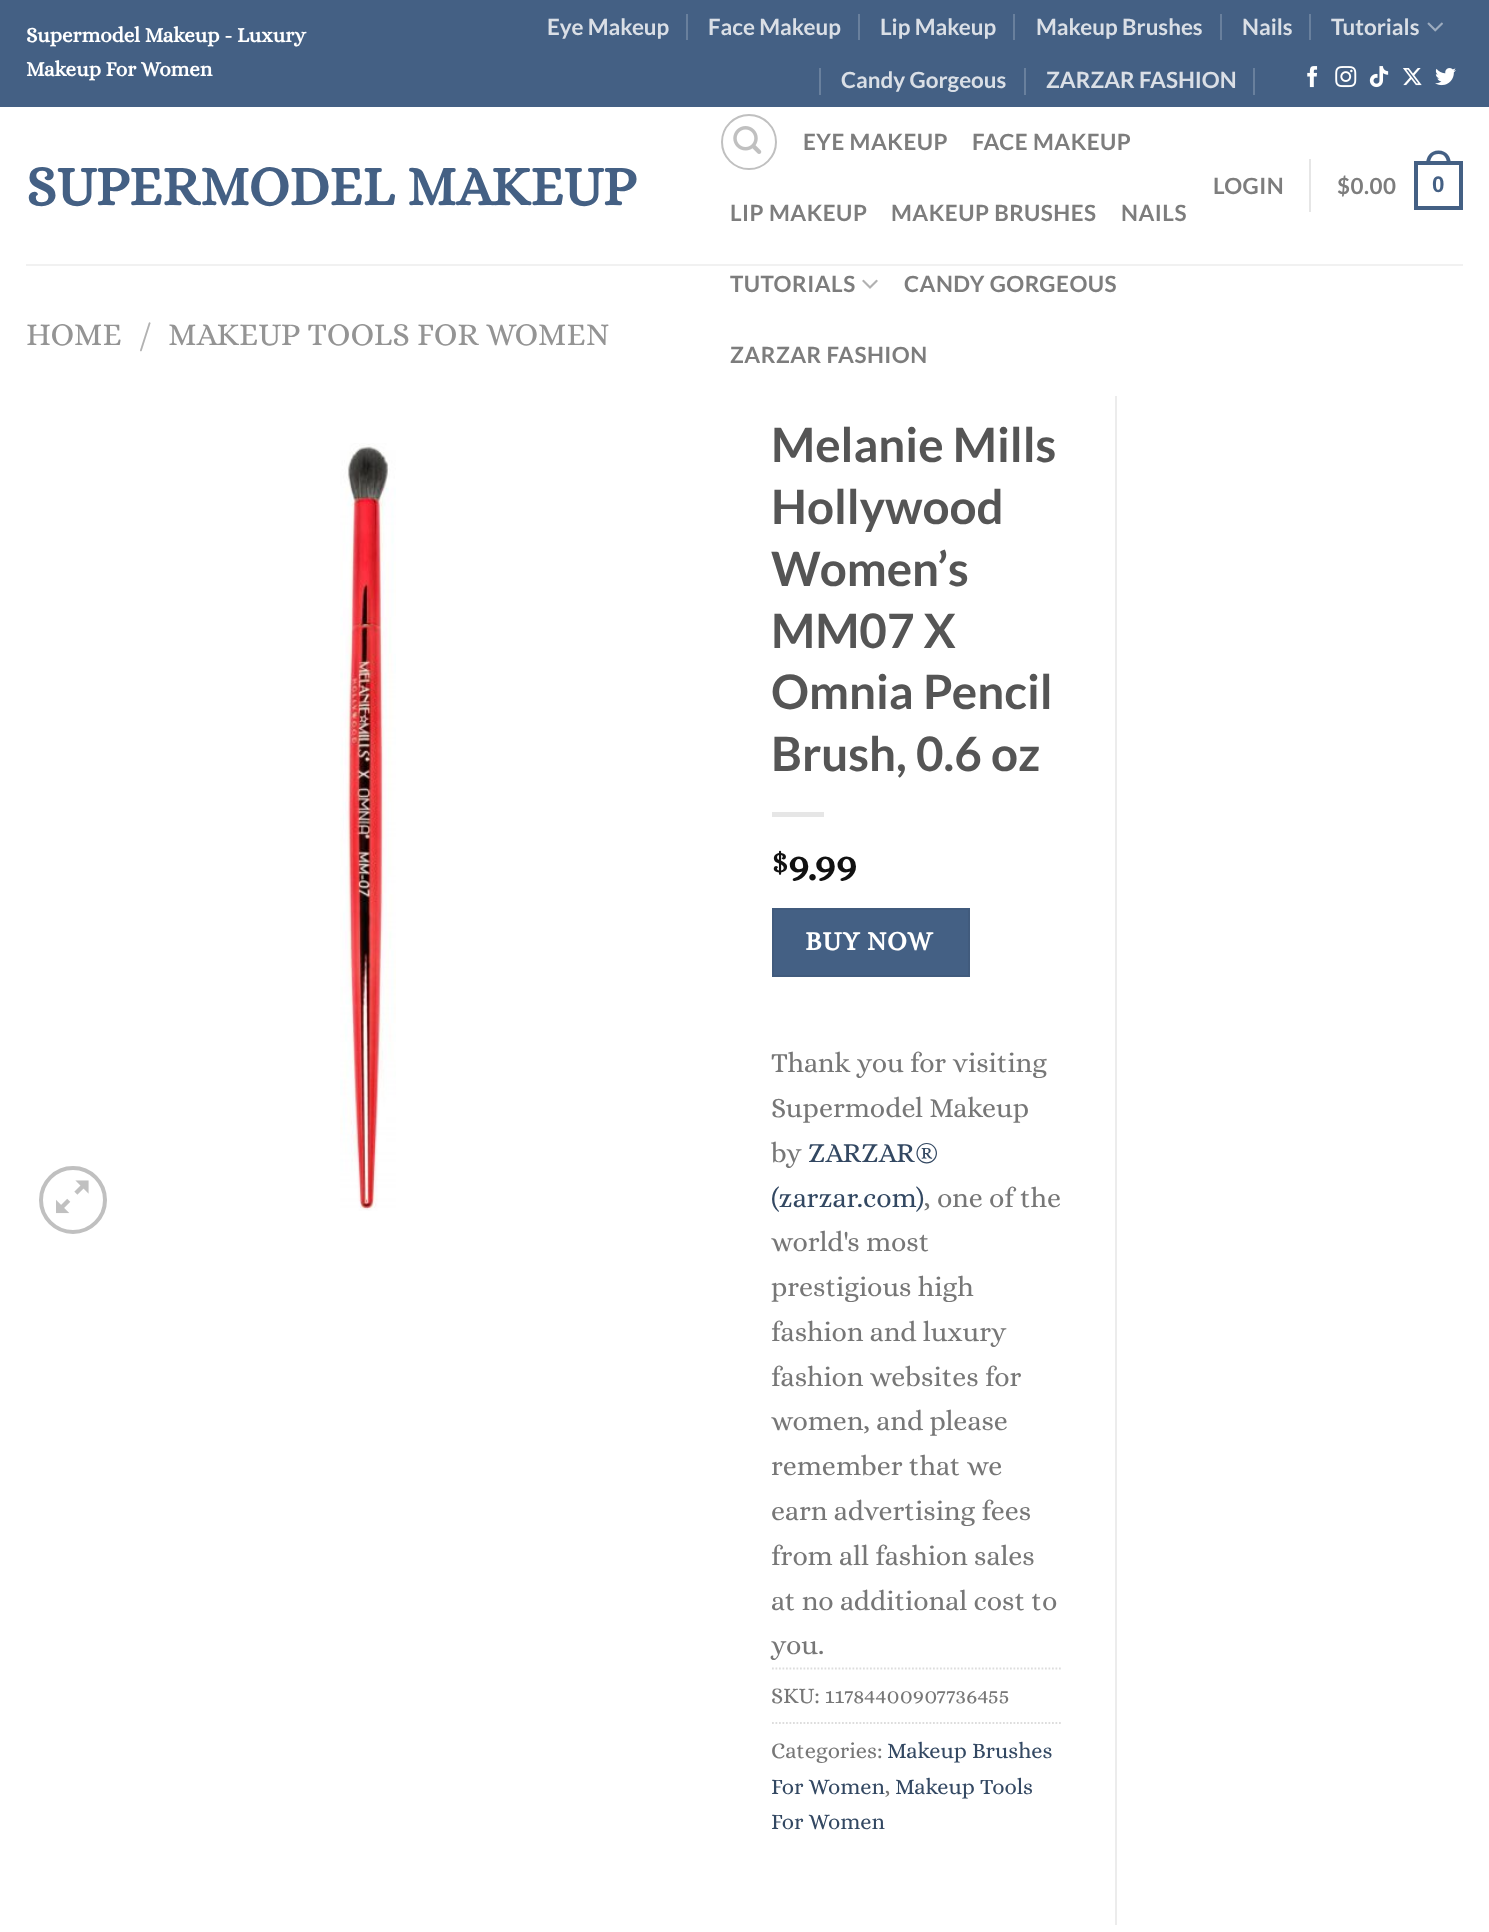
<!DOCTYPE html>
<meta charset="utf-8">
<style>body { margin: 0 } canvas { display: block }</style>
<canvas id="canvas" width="1489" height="1932"></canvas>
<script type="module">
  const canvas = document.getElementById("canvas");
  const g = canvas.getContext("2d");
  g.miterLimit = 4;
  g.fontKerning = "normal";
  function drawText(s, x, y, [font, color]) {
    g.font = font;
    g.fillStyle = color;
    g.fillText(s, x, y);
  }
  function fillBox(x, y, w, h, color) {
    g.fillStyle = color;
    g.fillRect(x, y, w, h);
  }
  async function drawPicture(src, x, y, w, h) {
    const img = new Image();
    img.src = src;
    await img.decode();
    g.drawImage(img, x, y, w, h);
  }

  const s1 = ["bold 21px Alice", "#FFFFFF"];
  const s2 = ["bold 22.4px Lato", "#DADFE6"];
  const s3 = ["bold 56px Alice", "#446084"];
  const s4 = ["bold 22.4px Lato", "#7D7D7D"];
  const s5 = ["bold 22.4px Liberation Sans", "#446084"];
  const s6 = ["32.25px Alice", "#949494"];
  const s7 = ["32.25px Alice", "#B2B2B2"];
  const s8 = ["bold 47.5px Lato", "#555555"];
  const s9 = ["bold 32px Alice", "#111111"];
  const s10 = ["bold 42px Alice", "#111111"];
  const s11 = ["bold 27px Alice", "#FFFFFF"];
  const s12 = ["28px Alice", "#777777"];
  const s13 = ["28px Alice", "#334862"];
  const s14 = ["22.4px Alice", "#777777"];
  const s15 = ["22.4px Alice", "#334862"];

  fillBox(0, 0, 1489, 1932, "#FFFFFF");
  fillBox(0, 0, 1489, 107, "#446084");
  drawText("Supermodel Makeup - Luxury", 26, 42, s1);
  drawText("Makeup For Women", 26, 76, s1);
  drawText("Eye Makeup", 547, 35, s2);
  fillBox(686, 14, 2, 26, "#69809D");
  drawText("Face Makeup", 708, 35, s2);
  fillBox(858, 14, 2, 26, "#69809D");
  drawText("Lip Makeup", 880, 35, s2);
  fillBox(1013, 14, 2, 26, "#69809D");
  drawText("Makeup Brushes", 1036, 35, s2);
  fillBox(1220, 14, 2, 26, "#69809D");
  drawText("Nails", 1242, 35, s2);
  fillBox(1309, 14, 2, 26, "#69809D");
  drawText("Tutorials", 1331, 35, s2);
  await drawPicture("pic1.png", 1427, 22, 16, 10);
  fillBox(819, 68, 2, 27, "#69809D");
  drawText("Candy Gorgeous", 841, 88, s2);
  fillBox(1024, 68, 2, 27, "#69809D");
  drawText("ZARZAR FASHION", 1046, 88, s2);
  fillBox(1253, 68, 2, 27, "#69809D");
  await drawPicture("pic2.png", 1307, 66, 11, 22);
  await drawPicture("pic3.png", 1335, 66, 22, 22);
  await drawPicture("pic4.png", 1369, 66, 20, 22);
  await drawPicture("pic5.png", 1403, 68, 19, 18);
  await drawPicture("pic6.png", 1435, 68, 21, 18);
  drawText("SUPERMODEL MAKEUP", 26, 205, s3);
  g.beginPath();
  g.arc(749, 142, 27, 0, Math.PI * 2);
  g.strokeStyle = "#C0C0C0";
  g.lineWidth = 2;
  g.stroke();
  await drawPicture("pic7.png", 733, 126, 29, 28);
  g.letterSpacing = "0.5px";
  drawText("EYE MAKEUP", 803, 150, s4);
  drawText("FACE MAKEUP", 972, 150, s4);
  drawText("LIP MAKEUP", 730, 221, s4);
  drawText("MAKEUP BRUSHES", 891, 221, s4);
  drawText("NAILS", 1121, 221, s4);
  drawText("TUTORIALS", 730, 292, s4);
  await drawPicture("pic8.png", 862, 279, 16, 10);
  drawText("CANDY GORGEOUS", 904, 292, s4);
  drawText("ZARZAR FASHION", 730, 363, s4);
  drawText("LOGIN", 1213, 194, s4);
  fillBox(1309, 159, 2, 53, "#E6E6E6");
  drawText("$0.00", 1337, 194, s4);
  g.strokeStyle = "#446084";
  g.lineWidth = 4;
  g.strokeRect(1416, 163, 45, 45);
  g.fillStyle = "#446084";
  g.beginPath();
  g.moveTo(1438.5, 150.5);
  g.bezierCurveTo(1447, 150.5, 1451, 157, 1451, 164.5);
  g.lineTo(1426, 164.5);
  g.bezierCurveTo(1426, 157, 1430, 150.5, 1438.5, 150.5);
  g.closePath();
  g.moveTo(1438.5, 154);
  g.bezierCurveTo(1445, 154, 1447, 159, 1447, 164.5);
  g.lineTo(1430, 164.5);
  g.bezierCurveTo(1430, 159, 1432, 154, 1438.5, 154);
  g.closePath();
  g.fill("evenodd");
  drawText("0", 1432, 192, s5);
  fillBox(26, 264, 1437, 2, "#F1F1F1");
  g.letterSpacing = "0px";
  drawText("HOME", 26, 345, s6);
  drawText("/", 139, 345, s7);
  drawText("MAKEUP TOOLS FOR WOMEN", 168, 345, s6);
  g.beginPath();
  g.arc(73, 1200, 32, 0, Math.PI * 2);
  g.strokeStyle = "#C0C0C0";
  g.stroke();
  await drawPicture("pic9.png", 56, 1180, 33, 34);
  await drawPicture("pic10.png", 340, 443, 56, 768);
  fillBox(1115, 396, 2, 1529, "#ECECEC");
  drawText("Melanie Mills", 771, 462, s8);
  drawText("Hollywood", 771, 524, s8);
  drawText("Women’s", 771, 586, s8);
  drawText("MM07 X", 771, 648, s8);
  drawText("Omnia Pencil", 771, 709, s8);
  drawText("Brush, 0.6 oz", 771, 771, s8);
  fillBox(772, 812, 52, 5, "#E6E6E6");
  drawText("$", 771, 872, s9);
  drawText("9.99", 788, 880, s10);
  g.fillStyle = "#446084";
  g.beginPath();
  g.rect(773, 909, 196, 67);
  g.fill();
  g.strokeStyle = "#415B7D";
  g.lineWidth = 2;
  g.stroke();
  g.letterSpacing = "0.75px";
  drawText("BUY NOW", 805, 950, s11);
  g.letterSpacing = "0px";
  drawText("Thank you for visiting", 771, 1072, s12);
  drawText("Supermodel Makeup", 771, 1117, s12);
  drawText("by", 771, 1162, s12);
  drawText("ZARZAR®", 808, 1162, s13);
  drawText("(zarzar.com)", 771, 1207, s13);
  drawText(", one of the", 924, 1207, s12);
  drawText("world's most", 771, 1251, s12);
  drawText("prestigious high", 771, 1296, s12);
  drawText("fashion and luxury", 771, 1341, s12);
  drawText("fashion websites for", 771, 1386, s12);
  drawText("women, and please", 771, 1430, s12);
  drawText("remember that we", 771, 1475, s12);
  drawText("earn advertising fees", 771, 1520, s12);
  drawText("from all fashion sales", 771, 1565, s12);
  drawText("at no additional cost to", 771, 1610, s12);
  drawText("you.", 771, 1654, s12);
  g.beginPath();
  g.moveTo(772, 1668.5);
  g.lineTo(1062, 1668.5);
  g.strokeStyle = "#DDDDDD";
  g.lineWidth = 1.8;
  g.setLineDash([1.75, 1.75]);
  g.stroke();
  drawText("SKU: 11784400907736455", 771, 1703, s14);
  g.beginPath();
  g.moveTo(772, 1723);
  g.lineTo(1062, 1723);
  g.stroke();
  drawText("Categories:", 771, 1758, s14);
  drawText("Makeup Brushes", 887, 1758, s15);
  drawText("For Women", 771, 1794, s15);
  drawText(",", 885, 1794, s14);
  drawText("Makeup Tools", 895, 1794, s15);
  drawText("For Women", 771, 1829, s15);
</script>
